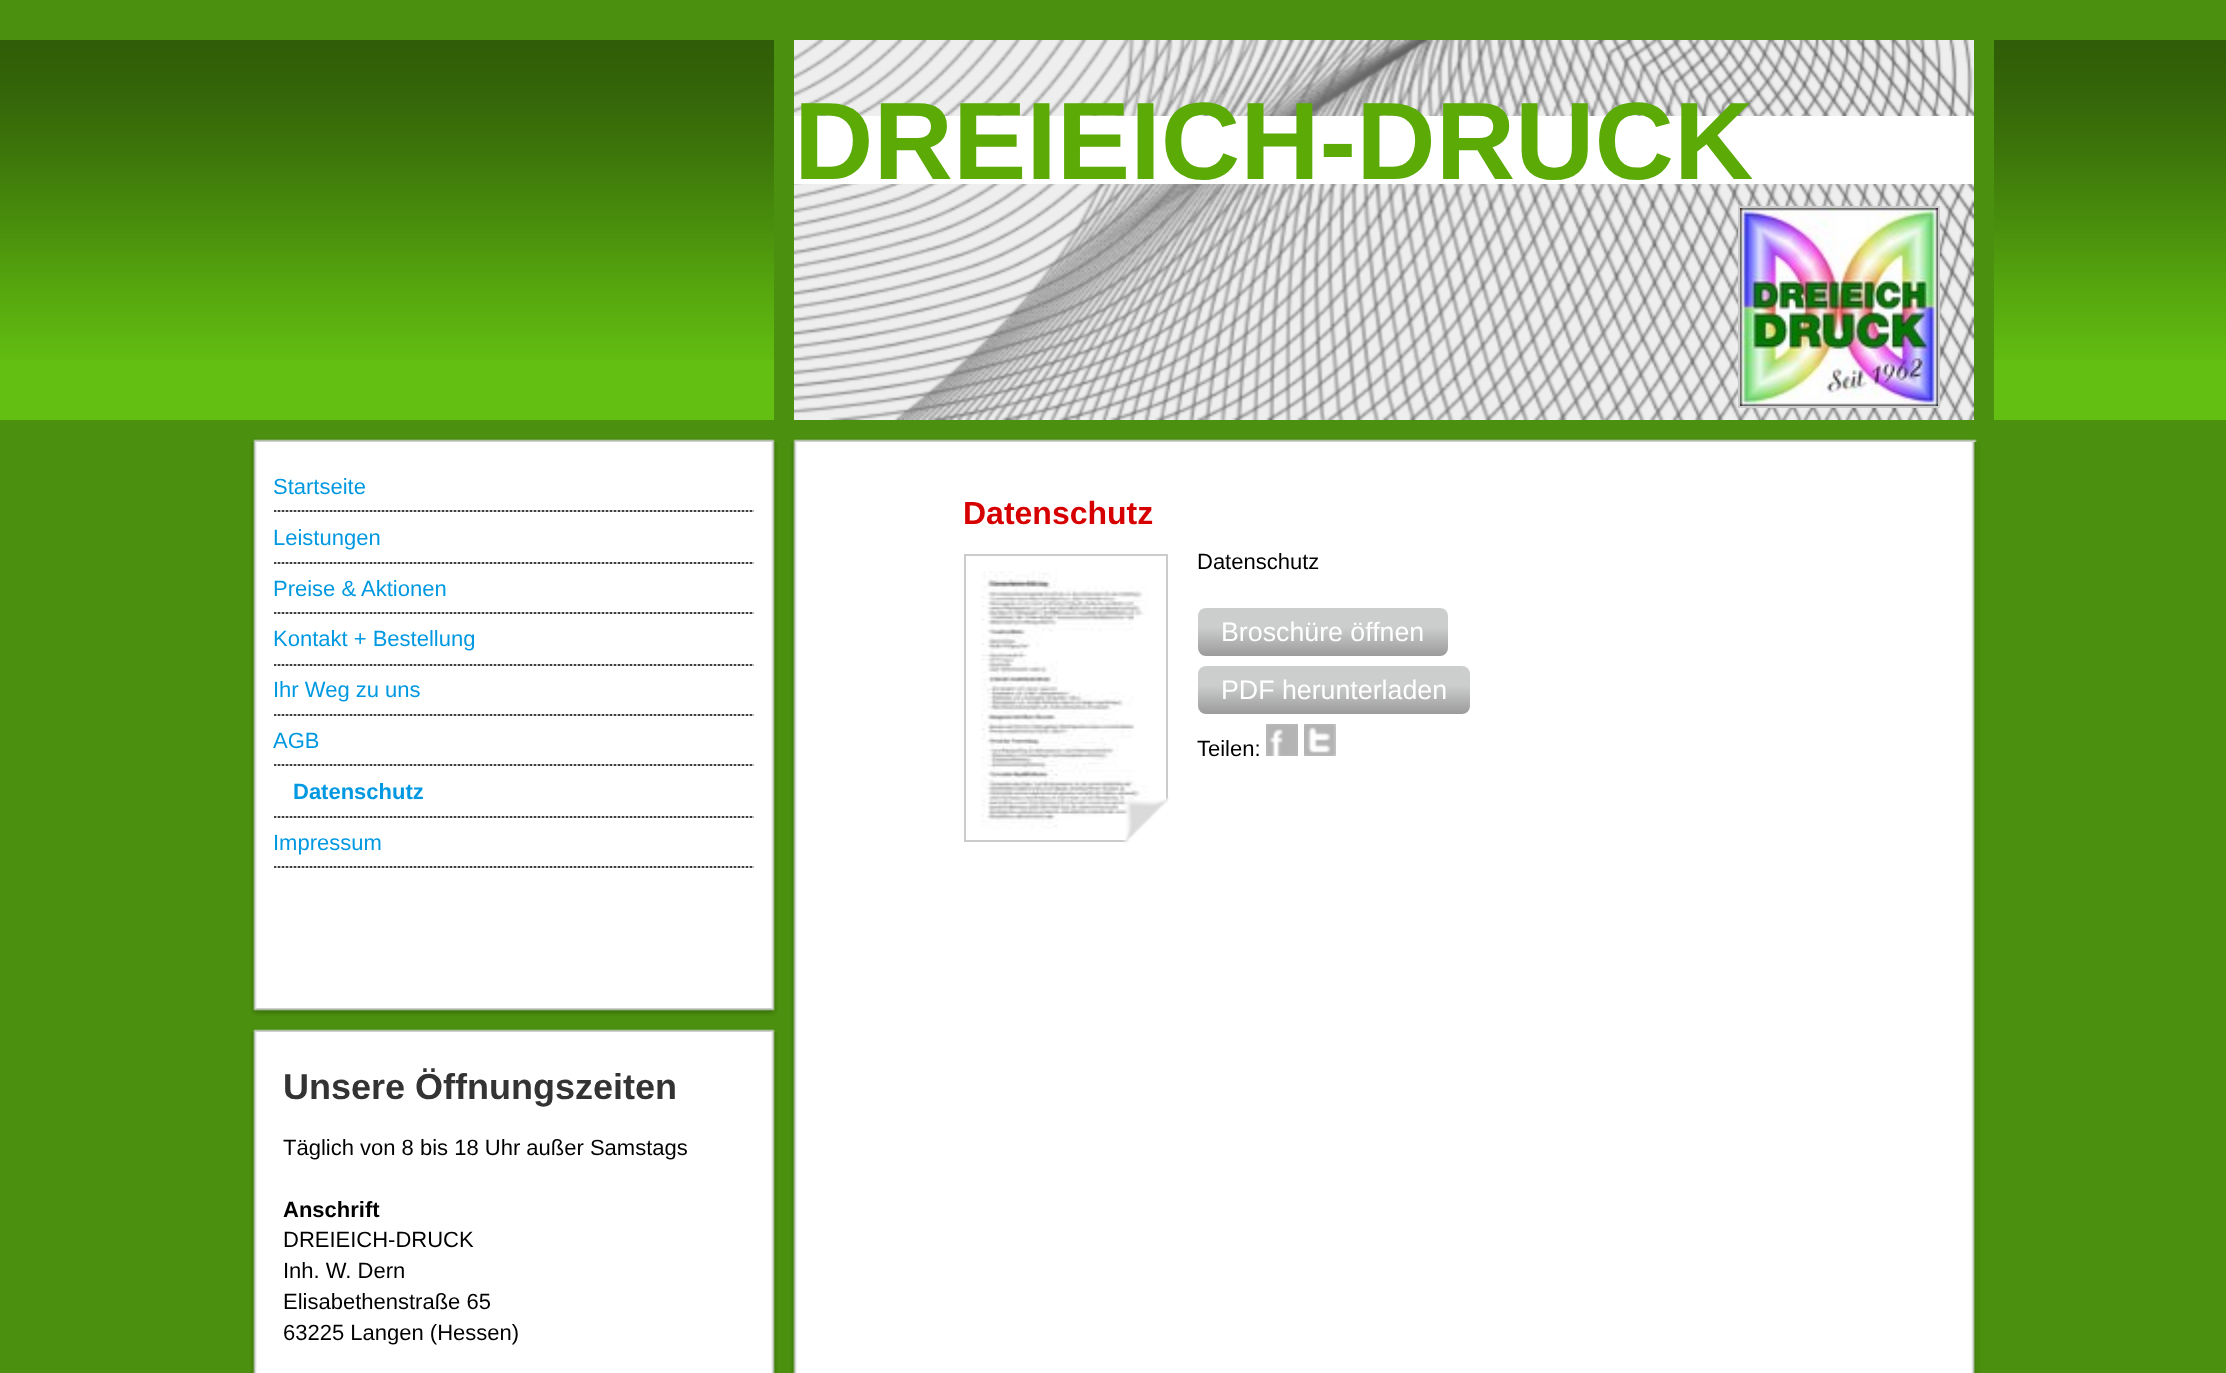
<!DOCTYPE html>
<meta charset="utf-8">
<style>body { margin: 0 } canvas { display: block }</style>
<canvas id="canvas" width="2226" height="1373"></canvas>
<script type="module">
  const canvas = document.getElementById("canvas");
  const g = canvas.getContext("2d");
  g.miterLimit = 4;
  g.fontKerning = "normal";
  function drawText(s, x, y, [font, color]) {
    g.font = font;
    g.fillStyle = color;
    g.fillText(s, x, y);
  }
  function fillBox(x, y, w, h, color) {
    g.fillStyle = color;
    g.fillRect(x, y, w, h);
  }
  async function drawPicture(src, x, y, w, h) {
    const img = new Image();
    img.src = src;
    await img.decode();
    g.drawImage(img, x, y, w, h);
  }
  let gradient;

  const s1 = ["bold 110px Liberation Sans", "#5BAA06"];
  const s2 = ["22px Liberation Sans", "#0099E1"];
  const s3 = ["bold 22px Liberation Sans", "#0099E1"];
  const s4 = ["bold 36px Liberation Sans", "#333333"];
  const s5 = ["22px Liberation Sans", "#000000"];
  const s6 = ["bold 22px Liberation Sans", "#000000"];
  const s7 = ["bold 32px Liberation Sans", "#D70000"];
  const s8 = ["26.75px Liberation Sans", "#FFFFFF"];

  fillBox(0, 0, 2226, 1373, "#4B900E");
  fillBox(0, 40, 2226, 380, "#63BF11");
  await drawPicture("pic1.png", 0, 40, 2226, 320);
  fillBox(1974, 40, 20, 380, "#4B900E");
  fillBox(774, 40, 20, 380, "#4B900E");
  fillBox(794, 40, 1180, 380, "#EEEEEE");
  await drawPicture("pic2.png", 794, 40, 1180, 380);
  fillBox(794, 116, 1180, 68, "#FFFFFF");
  drawText("DREIEICH-DRUCK", 794, 179, s1);
  g.strokeStyle = "#CCCCCC";
  g.lineWidth = 2;
  g.strokeRect(1739, 207, 200, 200);
  await drawPicture("pic3.png", 1740, 208, 198, 198);
  await drawPicture("pic4.png", 253, 438, 522, 4);
  await drawPicture("pic5.png", 250, 1008, 528, 8);
  await drawPicture("pic6.png", 250, 442, 528, 566);
  await drawPicture("pic7.png", 274, 510, 480, 2);
  drawText("Startseite", 273, 494, s2);
  await drawPicture("pic7.png", 274, 562, 480, 2);
  drawText("Leistungen", 273, 545, s2);
  await drawPicture("pic7.png", 274, 612, 480, 2);
  drawText("Preise & Aktionen", 273, 596, s2);
  await drawPicture("pic7.png", 274, 664, 480, 2);
  drawText("Kontakt + Bestellung", 273, 646, s2);
  await drawPicture("pic7.png", 274, 714, 480, 2);
  drawText("Ihr Weg zu uns", 273, 697, s2);
  await drawPicture("pic7.png", 274, 764, 480, 2);
  drawText("AGB", 273, 748, s2);
  await drawPicture("pic7.png", 274, 816, 480, 2);
  drawText("Datenschutz", 293, 799, s3);
  await drawPicture("pic7.png", 274, 866, 480, 2);
  drawText("Impressum", 273, 850, s2);
  await drawPicture("pic4.png", 253, 1028, 522, 4);
  await drawPicture("pic8.png", 250, 1032, 528, 341);
  drawText("Unsere Öffnungszeiten", 283, 1099, s4);
  drawText("Täglich von 8 bis 18 Uhr außer Samstags", 283, 1155, s5);
  drawText("Anschrift", 283, 1217, s6);
  drawText("DREIEICH-DRUCK", 283, 1247, s5);
  drawText("Inh. W. Dern", 283, 1278, s5);
  drawText("Elisabethenstraße 65", 283, 1309, s5);
  drawText("63225 Langen (Hessen)", 283, 1340, s5);
  await drawPicture("pic9.png", 793, 438, 1184, 4);
  await drawPicture("pic10.png", 790, 442, 1190, 931);
  drawText("Datenschutz", 963, 524, s7);
  g.strokeRect(965, 555, 202, 286);
  await drawPicture("pic11.png", 981, 571, 167, 258);
  await drawPicture("pic12.png", 1123, 797, 47, 47);
  drawText("Datenschutz", 1197, 569, s5);
  gradient = g.createLinearGradient(1323, 608, 1323, 656);
  gradient.addColorStop(0.4, "#CCCDCD");
  gradient.addColorStop(1, "#9B9B9B");
  g.fillStyle = gradient;
  g.beginPath();
  g.roundRect(1198, 608, 250, 48, 8);
  g.fill();
  drawText("Broschüre öffnen", 1221, 641, s8);
  gradient = g.createLinearGradient(1334, 666, 1334, 714);
  gradient.addColorStop(0.4, "#CCCDCD");
  gradient.addColorStop(1, "#9B9B9B");
  g.fillStyle = gradient;
  g.beginPath();
  g.roundRect(1198, 666, 272, 48, 8);
  g.fill();
  drawText("PDF herunterladen", 1221, 699, s8);
  drawText("Teilen:", 1197, 756, s5);
  await drawPicture("pic13.png", 1266, 724, 32, 32);
  await drawPicture("pic14.png", 1304, 724, 32, 32);
</script>
